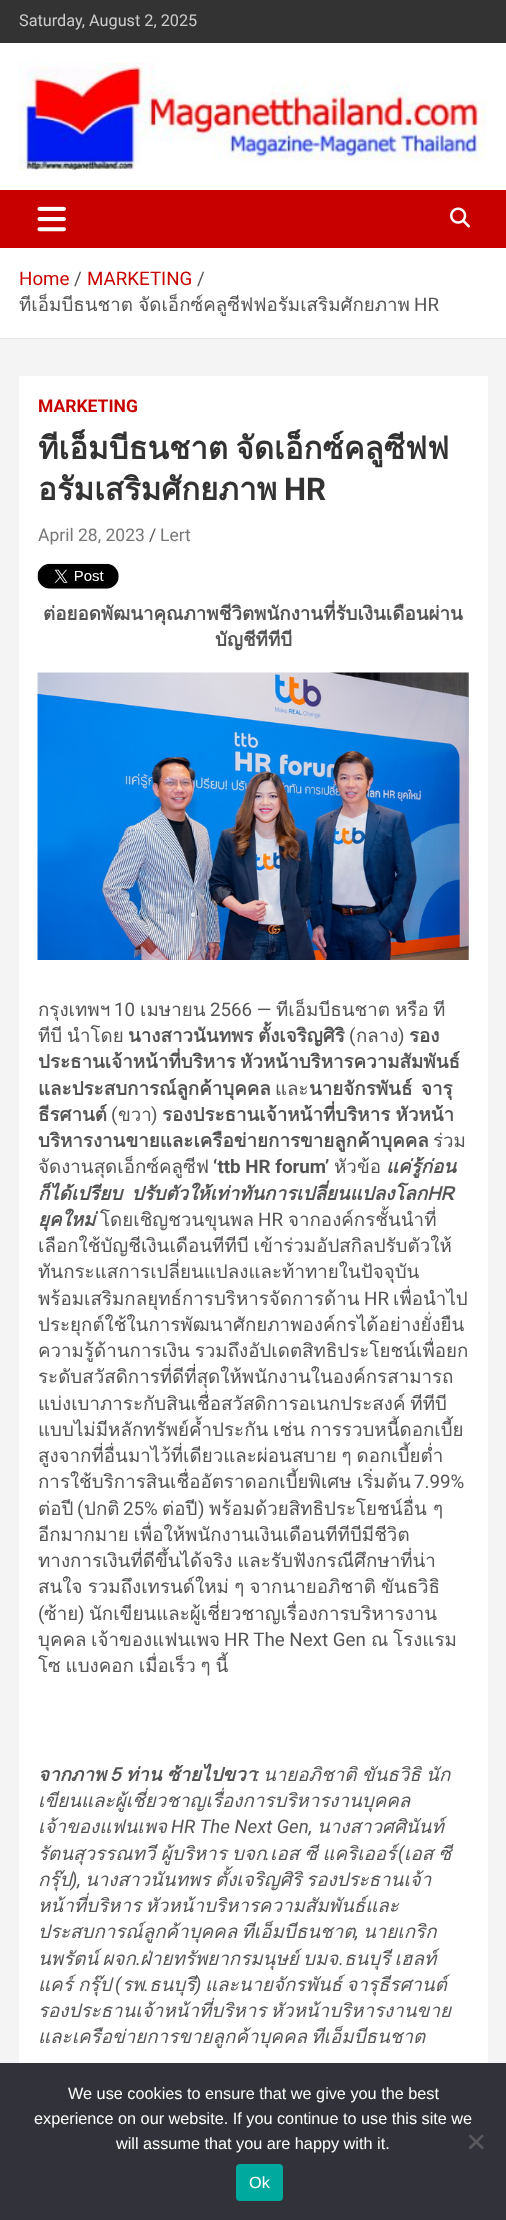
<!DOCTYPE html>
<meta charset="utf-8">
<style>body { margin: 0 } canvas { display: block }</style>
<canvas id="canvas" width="506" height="2220"></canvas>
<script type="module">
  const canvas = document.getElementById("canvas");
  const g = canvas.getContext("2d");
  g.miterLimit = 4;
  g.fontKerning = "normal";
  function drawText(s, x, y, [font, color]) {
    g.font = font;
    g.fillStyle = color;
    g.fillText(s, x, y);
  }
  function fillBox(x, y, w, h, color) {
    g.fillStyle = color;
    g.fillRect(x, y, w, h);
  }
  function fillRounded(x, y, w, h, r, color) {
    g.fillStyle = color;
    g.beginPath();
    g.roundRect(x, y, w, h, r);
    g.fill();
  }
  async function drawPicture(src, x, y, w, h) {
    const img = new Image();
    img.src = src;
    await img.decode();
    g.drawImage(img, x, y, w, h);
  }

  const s1 = ["16.25px Roboto", "#CCCCCC"];
  const s2 = ["18.75px Roboto", "#C80000"];
  const s3 = ["18.75px Roboto", "#555555"];
  const s4 = ["18.75px Loma", "#555555"];
  const s5 = ["bold 17.5px Roboto", "#C80000"];
  const s6 = ["bold 31.25px Loma", "#333333"];
  const s7 = ["bold 31.25px Roboto", "#333333"];
  const s8 = ["17.5px Roboto", "#777777"];
  const s9 = ["17.5px Roboto", "#555555"];
  const s10 = ["bold 18.75px Loma", "#555555"];
  const s11 = ["bold 18.75px Roboto", "#555555"];
  const s12 = ["italic bold 18.75px Loma", "#555555"];
  const s13 = ["italic 18.75px Loma", "#555555"];
  const s14 = ["italic 18.75px Roboto", "#555555"];
  const s15 = ["16.25px Liberation Sans", "#FFFFFF"];

  fillBox(0, 0, 506, 2220, "#F4F4F4");
  fillBox(0, 0, 506, 43, "#333333");
  drawText("Saturday, August 2, 2025", 19, 26, s1);
  fillBox(0, 43, 506, 147, "#FFFFFF");
  await drawPicture("pic1.png", 18, 62, 469, 108);
  fillBox(0, 190, 506, 58, "#C80000");
  await drawPicture("pic2.png", 37, 206, 29, 26);
  await drawPicture("pic3.png", 450, 207, 20, 21);
  fillBox(0, 248, 506, 90, "#FFFFFF");
  fillBox(0, 338, 506, 1, "#E6E6E6");
  drawText("Home", 19, 285, s2);
  drawText("/", 74, 285, s3);
  drawText("MARKETING", 87, 285, s2);
  drawText("/", 197, 285, s3);
  g.wordSpacing = "-1px";
  drawText("ทีเอ็มบีธนชาต จัดเอ็กซ์คลูซีฟฟอรัมเสริมศักยภาพ", 19, 311, s4);
  g.wordSpacing = "0px";
  drawText("HR", 414, 311, s3);
  fillBox(19, 376, 469, 1687, "#FFFFFF");
  drawText("MARKETING", 38, 412, s5);
  g.wordSpacing = "-3px";
  drawText("ทีเอ็มบีธนชาต จัดเอ็กซ์คลูซีฟฟ", 38, 459, s6);
  g.wordSpacing = "0px";
  drawText("อรัมเสริมศักยภาพ", 38, 500, s6);
  drawText("HR", 284, 500, s7);
  drawText("April 28, 2023", 38, 541, s8);
  drawText("/", 149, 541, s9);
  drawText("Lert", 160, 541, s8);
  await drawPicture("pic4.png", 37, 563, 82, 26);
  drawText("ต่อยอดพัฒนาคุณภาพชีวิตพนักงานที่รับเงินเดือนผ่าน", 43, 620, s10);
  drawText("บัญชีทีทีบี", 215, 646, s10);
  await drawPicture("pic5.png", 37, 672, 432, 288);
  drawText("กรุงเทพฯ", 38, 1016, s4);
  drawText("10", 114, 1016, s3);
  drawText("เมษายน", 140, 1016, s4);
  drawText("2566 —", 210, 1016, s3);
  drawText("ทีเอ็มบีธนชาต", 276, 1016, s4);
  drawText("หรือ", 395, 1016, s4);
  drawText("ที", 433, 1016, s4);
  g.wordSpacing = "-1.5px";
  drawText("ทีบี นำโดย", 38, 1042, s4);
  g.wordSpacing = "0px";
  drawText("นางสาวนันทพร", 128, 1042, s10);
  drawText("ตั้งเจริญศิริ", 258, 1042, s10);
  drawText("(", 349, 1042, s3);
  drawText("กลาง", 356, 1042, s4);
  drawText(")", 398, 1042, s3);
  drawText("รอง", 409, 1042, s10);
  g.wordSpacing = "-2px";
  drawText("ประธานเจ้าหน้าที่บริหาร หัวหน้าบริหารความสัมพันธ์", 38, 1068, s10);
  g.wordSpacing = "0px";
  drawText("และประสบการณ์ลูกค้าบุคคล", 38, 1095, s10);
  drawText("และ", 275, 1095, s4);
  drawText("นายจักรพันธ์", 309, 1095, s10);
  drawText("จารุ", 421, 1095, s10);
  drawText("ธีรศานต์", 38, 1121, s10);
  drawText("(", 111, 1121, s3);
  drawText("ขวา", 118, 1121, s4);
  drawText(")", 151, 1121, s3);
  g.wordSpacing = "-1px";
  drawText("รองประธานเจ้าหน้าที่บริหาร หัวหน้า", 162, 1121, s10);
  g.wordSpacing = "0px";
  drawText("บริหารงานขายและเครือข่ายการขายลูกค้าบุคคล", 38, 1147, s10);
  drawText("ร่วม", 433, 1147, s4);
  drawText("จัดงานสุดเอ็กซ์คลูซีฟ", 38, 1173, s4);
  drawText("‘ttb HR forum’", 213, 1173, s11);
  drawText("หัวข้อ", 334, 1173, s4);
  drawText("แค่รู้ก่อน", 386, 1173, s12);
  g.wordSpacing = "3px";
  drawText("ก็ได้เปรียบ ปรับตัวให้เท่าทันการเปลี่ยนแปลงโลก", 38, 1200, s12);
  g.wordSpacing = "0px";
  drawText("HR", 427, 1200, s12);
  drawText("ยุคใหม่", 38, 1226, s12);
  drawText("โดยเชิญชวนขุนพล", 100, 1226, s4);
  drawText("HR", 258, 1226, s3);
  drawText("จากองค์กรชั้นนำที่", 288, 1226, s4);
  g.wordSpacing = "-1.5px";
  drawText("เลือกใช้บัญชีเงินเดือนทีทีบี เข้าร่วมอัปสกิลปรับตัวให้", 38, 1252, s4);
  g.wordSpacing = "0px";
  drawText("ทันกระแสการเปลี่ยนแปลงและท้าทายในปัจจุบัน", 38, 1278, s4);
  drawText("พร้อมเสริมกลยุทธ์การบริหารจัดการด้าน", 38, 1305, s4);
  drawText("HR", 364, 1305, s3);
  drawText("เพื่อนำไป", 393, 1305, s4);
  drawText("ประยุกต์ใช้ในการพัฒนาศักยภาพองค์กรได้อย่างยั่งยืน", 38, 1331, s4);
  g.wordSpacing = "-1.5px";
  drawText("ความรู้ด้านการเงิน รวมถึงอัปเดตสิทธิประโยชน์เพื่อยก", 38, 1357, s4);
  g.wordSpacing = "0px";
  drawText("ระดับสวัสดิการที่ดีที่สุดให้พนักงานในองค์กรสามารถ", 38, 1383, s4);
  g.wordSpacing = "-1.5px";
  drawText("แบ่งเบาภาระกับสินเชื่อสวัสดิการอเนกประสงค์ ทีทีบี", 38, 1410, s4);
  drawText("แบบไม่มีหลักทรัพย์ค้ำประกัน เช่น การรวบหนี้ดอกเบี้ย", 38, 1436, s4);
  drawText("สูงจากที่อื่นมาไว้ที่เดียวและผ่อนสบาย ๆ ดอกเบี้ยต่ำ", 38, 1462, s4);
  g.wordSpacing = "-1px";
  drawText("การใช้บริการสินเชื่ออัตราดอกเบี้ยพิเศษ เริ่มต้น", 38, 1488, s4);
  g.wordSpacing = "0px";
  drawText("7.99%", 414, 1488, s3);
  drawText("ต่อปี", 38, 1515, s4);
  drawText("(", 77, 1515, s3);
  drawText("ปกติ", 84, 1515, s4);
  drawText("25%", 123, 1515, s3);
  drawText("ต่อปี", 162, 1515, s4);
  drawText(")", 198, 1515, s3);
  drawText("พร้อมด้วยสิทธิประโยชน์อื่น ๆ", 209, 1515, s4);
  g.wordSpacing = "-1.5px";
  drawText("อีกมากมาย เพื่อให้พนักงานเงินเดือนทีทีบีมีชีวิต", 38, 1541, s4);
  drawText("ทางการเงินที่ดีขึ้นได้จริง และรับฟังกรณีศึกษาที่น่า", 38, 1567, s4);
  g.wordSpacing = "-1px";
  drawText("สนใจ รวมถึงเทรนด์ใหม่ ๆ จากนายอภิชาติ", 38, 1593, s4);
  g.wordSpacing = "0px";
  drawText("ขันธวิธิ", 381, 1593, s4);
  drawText("(", 38, 1620, s3);
  drawText("ซ้าย", 44, 1620, s4);
  drawText(")", 78, 1620, s3);
  drawText("นักเขียนและผู้เชี่ยวชาญเรื่องการบริหารงาน", 89, 1620, s4);
  drawText("บุคคล", 38, 1646, s4);
  drawText("เจ้าของแฟนเพจ", 91, 1646, s4);
  drawText("HR The Next Gen", 224, 1646, s3);
  drawText("ณ", 371, 1646, s4);
  drawText("โรงแรม", 393, 1646, s4);
  g.wordSpacing = "-1.5px";
  drawText("โซ แบงคอก เมื่อเร็ว ๆ นี้", 38, 1672, s4);
  g.wordSpacing = "0px";
  drawText("จากภาพ", 38, 1781, s12);
  g.wordSpacing = "-1px";
  drawText("5 ท่าน ซ้ายไปขวา", 110, 1781, s12);
  drawText("นายอภิชาติ ขันธวิธิ นัก", 263, 1781, s13);
  g.wordSpacing = "0px";
  drawText(":", 255, 1781, s14);
  drawText("เขียนและผู้เชี่ยวชาญเรื่องการบริหารงานบุคคล", 38, 1807, s13);
  drawText("เจ้าของแฟนเพจ", 38, 1833, s13);
  drawText("HR The Next Gen,", 171, 1833, s14);
  drawText("นางสาวศศินันท์", 317, 1833, s13);
  g.wordSpacing = "-1px";
  drawText("รัตนสุวรรณทวี ผู้บริหาร บจก", 38, 1860, s13);
  g.wordSpacing = "0px";
  drawText(".", 265, 1860, s14);
  g.wordSpacing = "-1px";
  drawText("เอส ซี แคริเออร์", 270, 1860, s13);
  g.wordSpacing = "0px";
  drawText("(", 398, 1860, s14);
  g.wordSpacing = "-1px";
  drawText("เอส ซี", 404, 1860, s13);
  g.wordSpacing = "0px";
  drawText("กรุ๊ป", 38, 1886, s13);
  drawText("),", 71, 1886, s14);
  drawText("นางสาวนันทพร", 85, 1886, s13);
  g.wordSpacing = "-2px";
  drawText("ตั้งเจริญศิริ รองประธานเจ้า", 215, 1886, s13);
  drawText("หน้าที่บริหาร หัวหน้าบริหารความสัมพันธ์และ", 38, 1912, s13);
  drawText("ประสบการณ์ลูกค้าบุคคล ทีเอ็มบีธนชาต", 38, 1938, s13);
  g.wordSpacing = "0px";
  drawText("นายเกริก", 363, 1938, s13);
  drawText(",", 355, 1938, s14);
  g.wordSpacing = "-2px";
  drawText("นพรัตน์ ผจก", 38, 1965, s13);
  g.wordSpacing = "0px";
  drawText(".", 136, 1965, s14);
  g.wordSpacing = "-2px";
  drawText("ฝ่ายทรัพยากรมนุษย์ บมจ", 140, 1965, s13);
  g.wordSpacing = "0px";
  drawText(".", 339, 1965, s14);
  g.wordSpacing = "-2px";
  drawText("ธนบุรี เฮลท์", 344, 1965, s13);
  g.wordSpacing = "-1px";
  drawText("แคร์ กรุ๊ป", 38, 1991, s13);
  g.wordSpacing = "0px";
  drawText("(", 115, 1991, s14);
  drawText("รพ", 122, 1991, s13);
  drawText("ธนบุรี", 149, 1991, s13);
  drawText(")", 195, 1991, s14);
  g.wordSpacing = "-2px";
  drawText("และนายจักรพันธ์ จารุธีรศานต์", 205, 1991, s13);
  g.wordSpacing = "0px";
  drawText(".", 144, 1991, s14);
  g.wordSpacing = "-2px";
  drawText("รองประธานเจ้าหน้าที่บริหาร หัวหน้าบริหารงานขาย", 38, 2017, s13);
  drawText("และเครือข่ายการขายลูกค้าบุคคล ทีเอ็มบีธนชาต", 38, 2043, s13);
  fillBox(0, 2063, 506, 157, "#32323A");
  g.wordSpacing = "0px";
  drawText("We use cookies to ensure that we give you the best", 68, 2099, s15);
  drawText("experience on our website. If you continue to use this site we", 34, 2124, s15);
  drawText("will assume that you are happy with it.", 116, 2149, s15);
  g.fillStyle = "#59595D";
  g.beginPath();
  g.moveTo(482, 2134.5);
  g.lineTo(484, 2136);
  g.lineTo(470.5, 2149.5);
  g.lineTo(468.5, 2147.5);
  g.closePath();
  g.fill();
  g.beginPath();
  g.moveTo(468.5, 2136);
  g.lineTo(470.5, 2134.5);
  g.lineTo(484, 2147.5);
  g.lineTo(482, 2149.5);
  g.closePath();
  g.fill();
  fillRounded(236, 2164, 47, 37, 4, "#00A99D");
  drawText("Ok", 249, 2188, s15);
</script>
